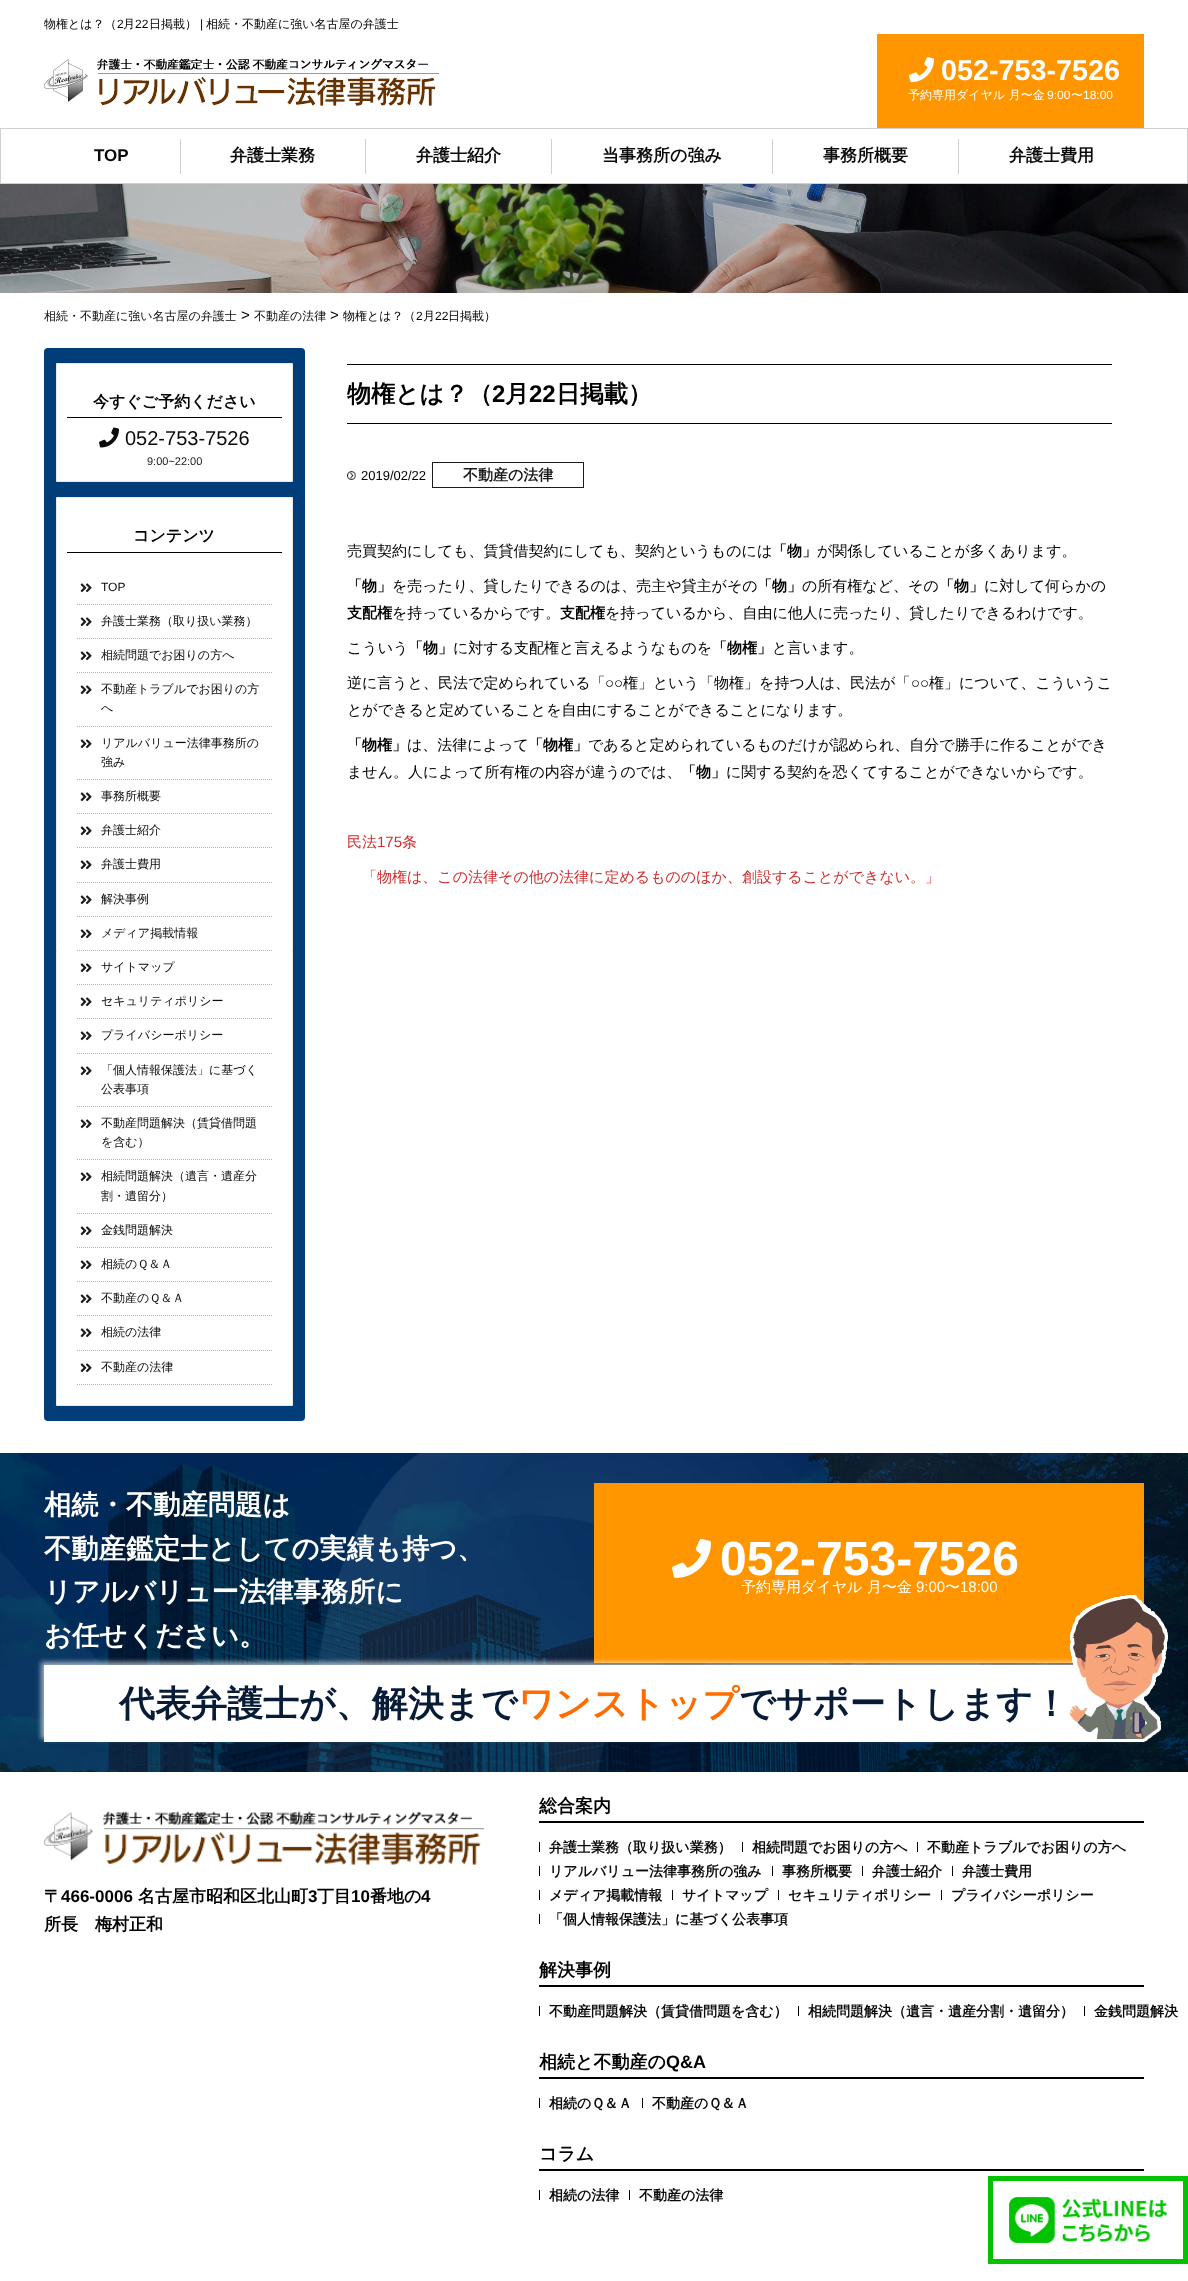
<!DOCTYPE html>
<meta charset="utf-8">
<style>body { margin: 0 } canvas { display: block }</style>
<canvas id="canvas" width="1188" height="2281"></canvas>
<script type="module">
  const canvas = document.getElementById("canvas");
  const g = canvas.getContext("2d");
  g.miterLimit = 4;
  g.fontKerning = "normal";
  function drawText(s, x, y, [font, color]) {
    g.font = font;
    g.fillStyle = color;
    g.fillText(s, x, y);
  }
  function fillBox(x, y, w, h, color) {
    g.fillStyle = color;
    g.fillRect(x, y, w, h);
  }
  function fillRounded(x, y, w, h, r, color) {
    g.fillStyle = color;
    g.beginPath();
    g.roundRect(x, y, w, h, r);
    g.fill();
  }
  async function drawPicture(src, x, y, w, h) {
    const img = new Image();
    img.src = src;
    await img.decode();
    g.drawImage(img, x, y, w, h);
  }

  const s1 = ["500 12px WenQuanYi Zen Hei", "#000000"];
  const s2 = ["12px Liberation Sans", "#000000"];
  const s3 = ["bold 28.75px Liberation Sans", "#FFFFFF"];
  const s4 = ["500 12px WenQuanYi Zen Hei", "#FFFFFF"];
  const s5 = ["12px Liberation Sans", "#FFFFFF"];
  const s6 = ["bold 17px Liberation Sans", "#0A0A0A"];
  const s7 = ["bold 17px WenQuanYi Zen Hei", "#0A0A0A"];
  const s8 = ["500 12px WenQuanYi Zen Hei", "#0A0A0A"];
  const s9 = ["15px Liberation Sans", "#000000"];
  const s10 = ["bold 16px WenQuanYi Zen Hei", "#000000"];
  const s11 = ["20px Liberation Sans", "#0A0A0A"];
  const s12 = ["11px Liberation Sans", "#1B1B1B"];
  const s13 = ["12px Liberation Sans", "#0A0A0A"];
  const s14 = ["bold 24px WenQuanYi Zen Hei", "#000000"];
  const s15 = ["bold 24px Liberation Sans", "#000000"];
  const s16 = ["13px Liberation Sans", "#000000"];
  const s17 = ["bold 15px WenQuanYi Zen Hei", "#1B1B1B"];
  const s18 = ["500 15px WenQuanYi Zen Hei", "#000000"];
  const s19 = ["bold 15px WenQuanYi Zen Hei", "#000000"];
  const s20 = ["500 15px WenQuanYi Zen Hei", "#CF2E2E"];
  const s21 = ["15px Liberation Sans", "#CF2E2E"];
  const s22 = ["bold 27.3px WenQuanYi Zen Hei", "#FFFFFF"];
  const s23 = ["bold 48px Liberation Sans", "#FFFFFF"];
  const s24 = ["500 15px WenQuanYi Zen Hei", "#FFFFFF"];
  const s25 = ["15px Liberation Sans", "#FFFFFF"];
  const s26 = ["bold 36px WenQuanYi Zen Hei", "#081C37"];
  const s27 = ["bold 36px WenQuanYi Zen Hei", "#FF6C00"];
  const s28 = ["bold 17px WenQuanYi Zen Hei", "#000000"];
  const s29 = ["bold 17px Liberation Sans", "#000000"];
  const s30 = ["bold 18px WenQuanYi Zen Hei", "#000000"];
  const s31 = ["bold 14px WenQuanYi Zen Hei", "#0A0A0A"];
  const s32 = ["bold 18px Liberation Sans", "#000000"];

  fillBox(0, 0, 1188, 2281, "#FFFFFF");
  drawText("物権とは？（", 44, 28, s1);
  drawText("2", 117, 28, s2);
  drawText("月", 123, 28, s1);
  drawText("22", 135, 28, s2);
  drawText("日掲載）", 149, 28, s1);
  drawText("|", 200, 28, s2);
  drawText("相続・不動産に強い名古屋の弁護士", 206, 28, s1);
  await drawPicture("pic1.png", 44, 58, 395, 48);
  fillBox(877, 34, 267, 94, "#FF9600");
  await drawPicture("pic2.png", 909, 57, 25, 26);
  drawText("052-753-7526", 941, 80, s3);
  drawText("予約専用ダイヤル 月〜金", 908, 99, s4);
  drawText("9:00", 1047, 99, s5);
  drawText("〜", 1071, 99, s4);
  drawText("18:00", 1083, 99, s5);
  g.strokeStyle = "#D1D1D1";
  g.strokeRect(0.5, 128.5, 1187, 55);
  drawText("TOP", 94, 161, s6);
  fillBox(180, 139, 1, 35, "#D1D1D1");
  drawText("弁護士業務", 230, 161, s7);
  fillBox(365, 139, 1, 35, "#D1D1D1");
  drawText("弁護士紹介", 416, 161, s7);
  fillBox(551, 139, 1, 35, "#D1D1D1");
  drawText("当事務所の強み", 602, 161, s7);
  fillBox(772, 139, 1, 35, "#D1D1D1");
  drawText("事務所概要", 823, 161, s7);
  fillBox(958, 139, 1, 35, "#D1D1D1");
  drawText("弁護士費用", 1009, 161, s7);
  await drawPicture("pic3.png", 0, 184, 1188, 109);
  drawText("相続・不動産に強い名古屋の弁護士", 44, 320, s8);
  drawText(">", 241, 320, s9);
  drawText("不動産の法律", 254, 320, s8);
  drawText(">", 330, 320, s9);
  drawText("物権とは？（", 343, 320, s1);
  drawText("2", 416, 320, s2);
  drawText("月", 423, 320, s1);
  drawText("22", 435, 320, s2);
  drawText("日掲載）", 448, 320, s1);
  fillRounded(44, 348, 261, 1073, 4, "#013D78");
  g.fillStyle = "#FFFFFF";
  g.beginPath();
  g.rect(56.5, 363.5, 236, 118);
  g.fill();
  g.strokeStyle = "#E9E9E9";
  g.stroke();
  fillBox(67, 417, 215, 1, "#000000");
  drawText("今すぐご予約ください", 93, 407, s10);
  await drawPicture("pic4.png", 99, 427, 20, 21);
  drawText("052-753-7526", 125, 445, s11);
  drawText("9:00~22:00", 147, 465, s12);
  g.fillStyle = "#FFFFFF";
  g.beginPath();
  g.rect(56.5, 497.5, 236, 908);
  g.fill();
  g.stroke();
  fillBox(67, 552, 215, 1, "#000000");
  drawText("コンテンツ", 133, 541, s10);
  g.beginPath();
  g.moveTo(77, 604.5);
  g.lineTo(272, 604.5);
  g.strokeStyle = "#B3B3B3";
  g.setLineDash([1, 1]);
  g.stroke();
  await drawPicture("pic5.png", 80, 583, 12, 10);
  drawText("TOP", 101, 591, s13);
  g.beginPath();
  g.moveTo(77, 638.5);
  g.lineTo(272, 638.5);
  g.stroke();
  await drawPicture("pic5.png", 80, 617, 12, 10);
  drawText("弁護士業務（取り扱い業務）", 101, 625, s8);
  g.beginPath();
  g.moveTo(77, 672.5);
  g.lineTo(272, 672.5);
  g.stroke();
  await drawPicture("pic5.png", 80, 651, 12, 10);
  drawText("相続問題でお困りの方へ", 101, 659, s8);
  g.beginPath();
  g.moveTo(77, 726.5);
  g.lineTo(272, 726.5);
  g.stroke();
  await drawPicture("pic5.png", 80, 685, 12, 10);
  drawText("不動産トラブルでお困りの方", 101, 693, s8);
  drawText("へ", 101, 712, s8);
  g.beginPath();
  g.moveTo(77, 779.5);
  g.lineTo(272, 779.5);
  g.stroke();
  await drawPicture("pic5.png", 80, 739, 12, 10);
  drawText("リアルバリュー法律事務所の", 101, 747, s8);
  drawText("強み", 101, 766, s8);
  g.beginPath();
  g.moveTo(77, 813.5);
  g.lineTo(272, 813.5);
  g.stroke();
  await drawPicture("pic5.png", 80, 792, 12, 10);
  drawText("事務所概要", 101, 800, s8);
  g.beginPath();
  g.moveTo(77, 847.5);
  g.lineTo(272, 847.5);
  g.stroke();
  await drawPicture("pic5.png", 80, 826, 12, 10);
  drawText("弁護士紹介", 101, 834, s8);
  g.beginPath();
  g.moveTo(77, 882.5);
  g.lineTo(272, 882.5);
  g.stroke();
  await drawPicture("pic5.png", 80, 860, 12, 10);
  drawText("弁護士費用", 101, 868, s8);
  g.beginPath();
  g.moveTo(77, 916.5);
  g.lineTo(272, 916.5);
  g.stroke();
  await drawPicture("pic5.png", 80, 895, 12, 10);
  drawText("解決事例", 101, 903, s8);
  g.beginPath();
  g.moveTo(77, 950.5);
  g.lineTo(272, 950.5);
  g.stroke();
  await drawPicture("pic5.png", 80, 929, 12, 10);
  drawText("メディア掲載情報", 101, 937, s8);
  g.beginPath();
  g.moveTo(77, 984.5);
  g.lineTo(272, 984.5);
  g.stroke();
  await drawPicture("pic5.png", 80, 963, 12, 10);
  drawText("サイトマップ", 101, 971, s8);
  g.beginPath();
  g.moveTo(77, 1018.5);
  g.lineTo(272, 1018.5);
  g.stroke();
  await drawPicture("pic5.png", 80, 997, 12, 10);
  drawText("セキュリティポリシー", 101, 1005, s8);
  g.beginPath();
  g.moveTo(77, 1053.5);
  g.lineTo(272, 1053.5);
  g.stroke();
  await drawPicture("pic5.png", 80, 1031, 12, 10);
  drawText("プライバシーポリシー", 101, 1039, s8);
  g.beginPath();
  g.moveTo(77, 1106.5);
  g.lineTo(272, 1106.5);
  g.stroke();
  await drawPicture("pic5.png", 80, 1066, 12, 10);
  drawText("「個人情報保護法」に基づく", 101, 1074, s8);
  drawText("公表事項", 101, 1093, s8);
  g.beginPath();
  g.moveTo(77, 1159.5);
  g.lineTo(272, 1159.5);
  g.stroke();
  await drawPicture("pic5.png", 80, 1119, 12, 10);
  drawText("不動産問題解決（賃貸借問題", 101, 1127, s8);
  drawText("を含む）", 101, 1146, s8);
  g.beginPath();
  g.moveTo(77, 1213.5);
  g.lineTo(272, 1213.5);
  g.stroke();
  await drawPicture("pic5.png", 80, 1172, 12, 10);
  drawText("相続問題解決（遺言・遺産分", 101, 1180, s8);
  drawText("割・遺留分）", 101, 1200, s8);
  g.beginPath();
  g.moveTo(77, 1247.5);
  g.lineTo(272, 1247.5);
  g.stroke();
  await drawPicture("pic5.png", 80, 1226, 12, 10);
  drawText("金銭問題解決", 101, 1234, s8);
  g.beginPath();
  g.moveTo(77, 1281.5);
  g.lineTo(272, 1281.5);
  g.stroke();
  await drawPicture("pic5.png", 80, 1260, 12, 10);
  drawText("相続のＱ＆Ａ", 101, 1268, s8);
  g.beginPath();
  g.moveTo(77, 1315.5);
  g.lineTo(272, 1315.5);
  g.stroke();
  await drawPicture("pic5.png", 80, 1294, 12, 10);
  drawText("不動産のＱ＆Ａ", 101, 1302, s8);
  g.beginPath();
  g.moveTo(77, 1350.5);
  g.lineTo(272, 1350.5);
  g.stroke();
  await drawPicture("pic5.png", 80, 1328, 12, 10);
  drawText("相続の法律", 101, 1336, s8);
  g.beginPath();
  g.moveTo(77, 1384.5);
  g.lineTo(272, 1384.5);
  g.stroke();
  await drawPicture("pic5.png", 80, 1363, 12, 10);
  drawText("不動産の法律", 101, 1371, s8);
  fillBox(347, 364, 765, 1, "#000000");
  fillBox(347, 423, 765, 1, "#000000");
  drawText("物権とは？（", 347, 402, s14);
  drawText("2", 492, 402, s15);
  drawText("月", 505, 402, s14);
  drawText("22", 529, 402, s15);
  drawText("日掲載）", 556, 402, s14);
  await drawPicture("pic6.png", 347, 471, 9, 9);
  drawText("2019/02/22", 361, 480, s16);
  g.strokeStyle = "#1B1B1B";
  g.setLineDash([]);
  g.strokeRect(432.5, 462.5, 151, 25);
  drawText("不動産の法律", 463, 480, s17);
  drawText("売買契約にしても、賃貸借契約にしても、契約というものには", 347, 556, s18);
  drawText("「物」", 772, 556, s19);
  drawText("が関係していることが多くあります。", 817, 556, s18);
  drawText("「物」", 347, 591, s19);
  drawText("を売ったり、貸したりできるのは、売主や貸主がその", 392, 591, s18);
  drawText("「物」", 757, 591, s19);
  drawText("の所有権など、その", 802, 591, s18);
  drawText("「物」", 939, 591, s19);
  drawText("に対して何らかの", 984, 591, s18);
  drawText("支配権", 347, 618, s19);
  drawText("を持っているからです。", 392, 618, s18);
  drawText("支配権", 560, 618, s19);
  drawText("を持っているから、自由に他人に売ったり、貸したりできるわけです。", 605, 618, s18);
  drawText("こういう", 347, 653, s18);
  drawText("「物」", 408, 653, s19);
  drawText("に対する支配権と言えるようなものを", 453, 653, s18);
  drawText("「物権」", 712, 653, s19);
  drawText("と言います。", 772, 653, s18);
  drawText("逆に言うと、民法で定められている「", 347, 688, s18);
  drawText("○○", 605, 688, s9);
  drawText("権」という「物権」を持つ人は、民法が「", 623, 688, s18);
  drawText("○○", 911, 688, s9);
  drawText("権」について、こういうこ", 929, 688, s18);
  drawText("とができると定めていることを自由にすることができることになります。", 347, 715, s18);
  drawText("「物権」", 347, 750, s19);
  drawText("は、法律によって", 407, 750, s18);
  drawText("「物権」", 528, 750, s19);
  drawText("であると定められているものだけが認められ、自分で勝手に作ることができ", 588, 750, s18);
  drawText("ません。人によって所有権の内容が違うのでは、", 347, 777, s18);
  drawText("「物」", 681, 777, s19);
  drawText("に関する契約を恐くてすることができないからです。", 726, 777, s18);
  drawText("民法", 347, 847, s20);
  drawText("175", 377, 847, s21);
  drawText("条", 402, 847, s20);
  drawText("「物権は、この法律その他の法律に定めるもののほか、創設することができない。」", 362, 882, s20);
  await drawPicture("pic7.png", 0, 1453, 1188, 319);
  drawText("相続・不動産問題は", 44, 1514, s22);
  drawText("不動産鑑定士としての実績も持つ、", 44, 1558, s22);
  drawText("リアルバリュー法律事務所に", 44, 1601, s22);
  drawText("お任せください。", 44, 1645, s22);
  fillBox(594, 1483, 550, 180, "#FF9600");
  await drawPicture("pic8.png", 672, 1538, 39, 40);
  drawText("052-753-7526", 720, 1575, s23);
  drawText("予約専用ダイヤル 月〜金", 741, 1592, s24);
  drawText("9:00", 916, 1592, s25);
  drawText("〜", 945, 1592, s24);
  drawText("18:00", 960, 1592, s25);
  g.fillStyle = "rgba(255, 255, 255, 0.6)";
  g.filter = "blur(2.5px)";
  g.beginPath();
  g.rect(41, 1662, 1100, 77);
  g.fill();
  g.filter = "none";
  fillBox(44, 1665, 1100, 77, "#FFFFFF");
  drawText("代表弁護士が、解決まで", 119, 1716, s26);
  drawText("ワンストップ", 518, 1716, s27);
  drawText("でサポートします！", 739, 1716, s26);
  await drawPicture("pic9.png", 1069, 1595, 100, 147);
  await drawPicture("pic10.png", 44, 1811, 440, 54);
  drawText("〒", 44, 1902, s28);
  drawText("466-0006", 61, 1902, s29);
  drawText("名古屋市昭和区北山町", 138, 1902, s28);
  drawText("3", 308, 1902, s29);
  drawText("丁目", 317, 1902, s28);
  drawText("10", 351, 1902, s29);
  drawText("番地の", 370, 1902, s28);
  drawText("4", 421, 1902, s29);
  drawText("所長　梅村正和", 44, 1930, s28);
  fillBox(539, 1821, 605, 2, "#000000");
  drawText("総合案内", 539, 1812, s30);
  fillBox(539, 1842, 1, 10, "#000000");
  drawText("弁護士業務（取り扱い業務）", 549, 1852, s31);
  fillBox(742, 1842, 1, 10, "#000000");
  drawText("相続問題でお困りの方へ", 752, 1852, s31);
  fillBox(917, 1842, 1, 10, "#000000");
  drawText("不動産トラブルでお困りの方へ", 927, 1852, s31);
  fillBox(539, 1866, 1, 10, "#000000");
  drawText("リアルバリュー法律事務所の強み", 549, 1876, s31);
  fillBox(772, 1866, 1, 10, "#000000");
  drawText("事務所概要", 782, 1876, s31);
  fillBox(862, 1866, 1, 10, "#000000");
  drawText("弁護士紹介", 872, 1876, s31);
  fillBox(952, 1866, 1, 10, "#000000");
  drawText("弁護士費用", 962, 1876, s31);
  fillBox(539, 1890, 1, 10, "#000000");
  drawText("メディア掲載情報", 549, 1900, s31);
  fillBox(672, 1890, 1, 10, "#000000");
  drawText("サイトマップ", 682, 1900, s31);
  fillBox(778, 1890, 1, 10, "#000000");
  drawText("セキュリティポリシー", 788, 1900, s31);
  fillBox(941, 1890, 1, 10, "#000000");
  drawText("プライバシーポリシー", 951, 1900, s31);
  fillBox(539, 1914, 1, 10, "#000000");
  drawText("「個人情報保護法」に基づく公表事項", 549, 1924, s31);
  fillBox(539, 1985, 605, 2, "#000000");
  drawText("解決事例", 539, 1976, s30);
  fillBox(539, 2006, 1, 10, "#000000");
  drawText("不動産問題解決（賃貸借問題を含む）", 549, 2016, s31);
  fillBox(798, 2006, 1, 10, "#000000");
  drawText("相続問題解決（遺言・遺産分割・遺留分）", 808, 2016, s31);
  fillBox(1084, 2006, 1, 10, "#000000");
  drawText("金銭問題解決", 1094, 2016, s31);
  fillBox(539, 2077, 605, 2, "#000000");
  drawText("相続と不動産の", 539, 2068, s30);
  drawText("Q&A", 666, 2068, s32);
  fillBox(539, 2098, 1, 10, "#000000");
  drawText("相続のＱ＆Ａ", 549, 2108, s31);
  fillBox(642, 2098, 1, 10, "#000000");
  drawText("不動産のＱ＆Ａ", 652, 2108, s31);
  fillBox(539, 2169, 605, 2, "#000000");
  drawText("コラム", 539, 2160, s30);
  fillBox(539, 2190, 1, 10, "#000000");
  drawText("相続の法律", 549, 2200, s31);
  fillBox(629, 2190, 1, 10, "#000000");
  drawText("不動産の法律", 639, 2200, s31);
  g.strokeStyle = "#03C300";
  g.lineWidth = 5;
  g.strokeRect(990.5, 2178.5, 195, 83);
  await drawPicture("pic11.png", 1009, 2197, 158, 46);
</script>
